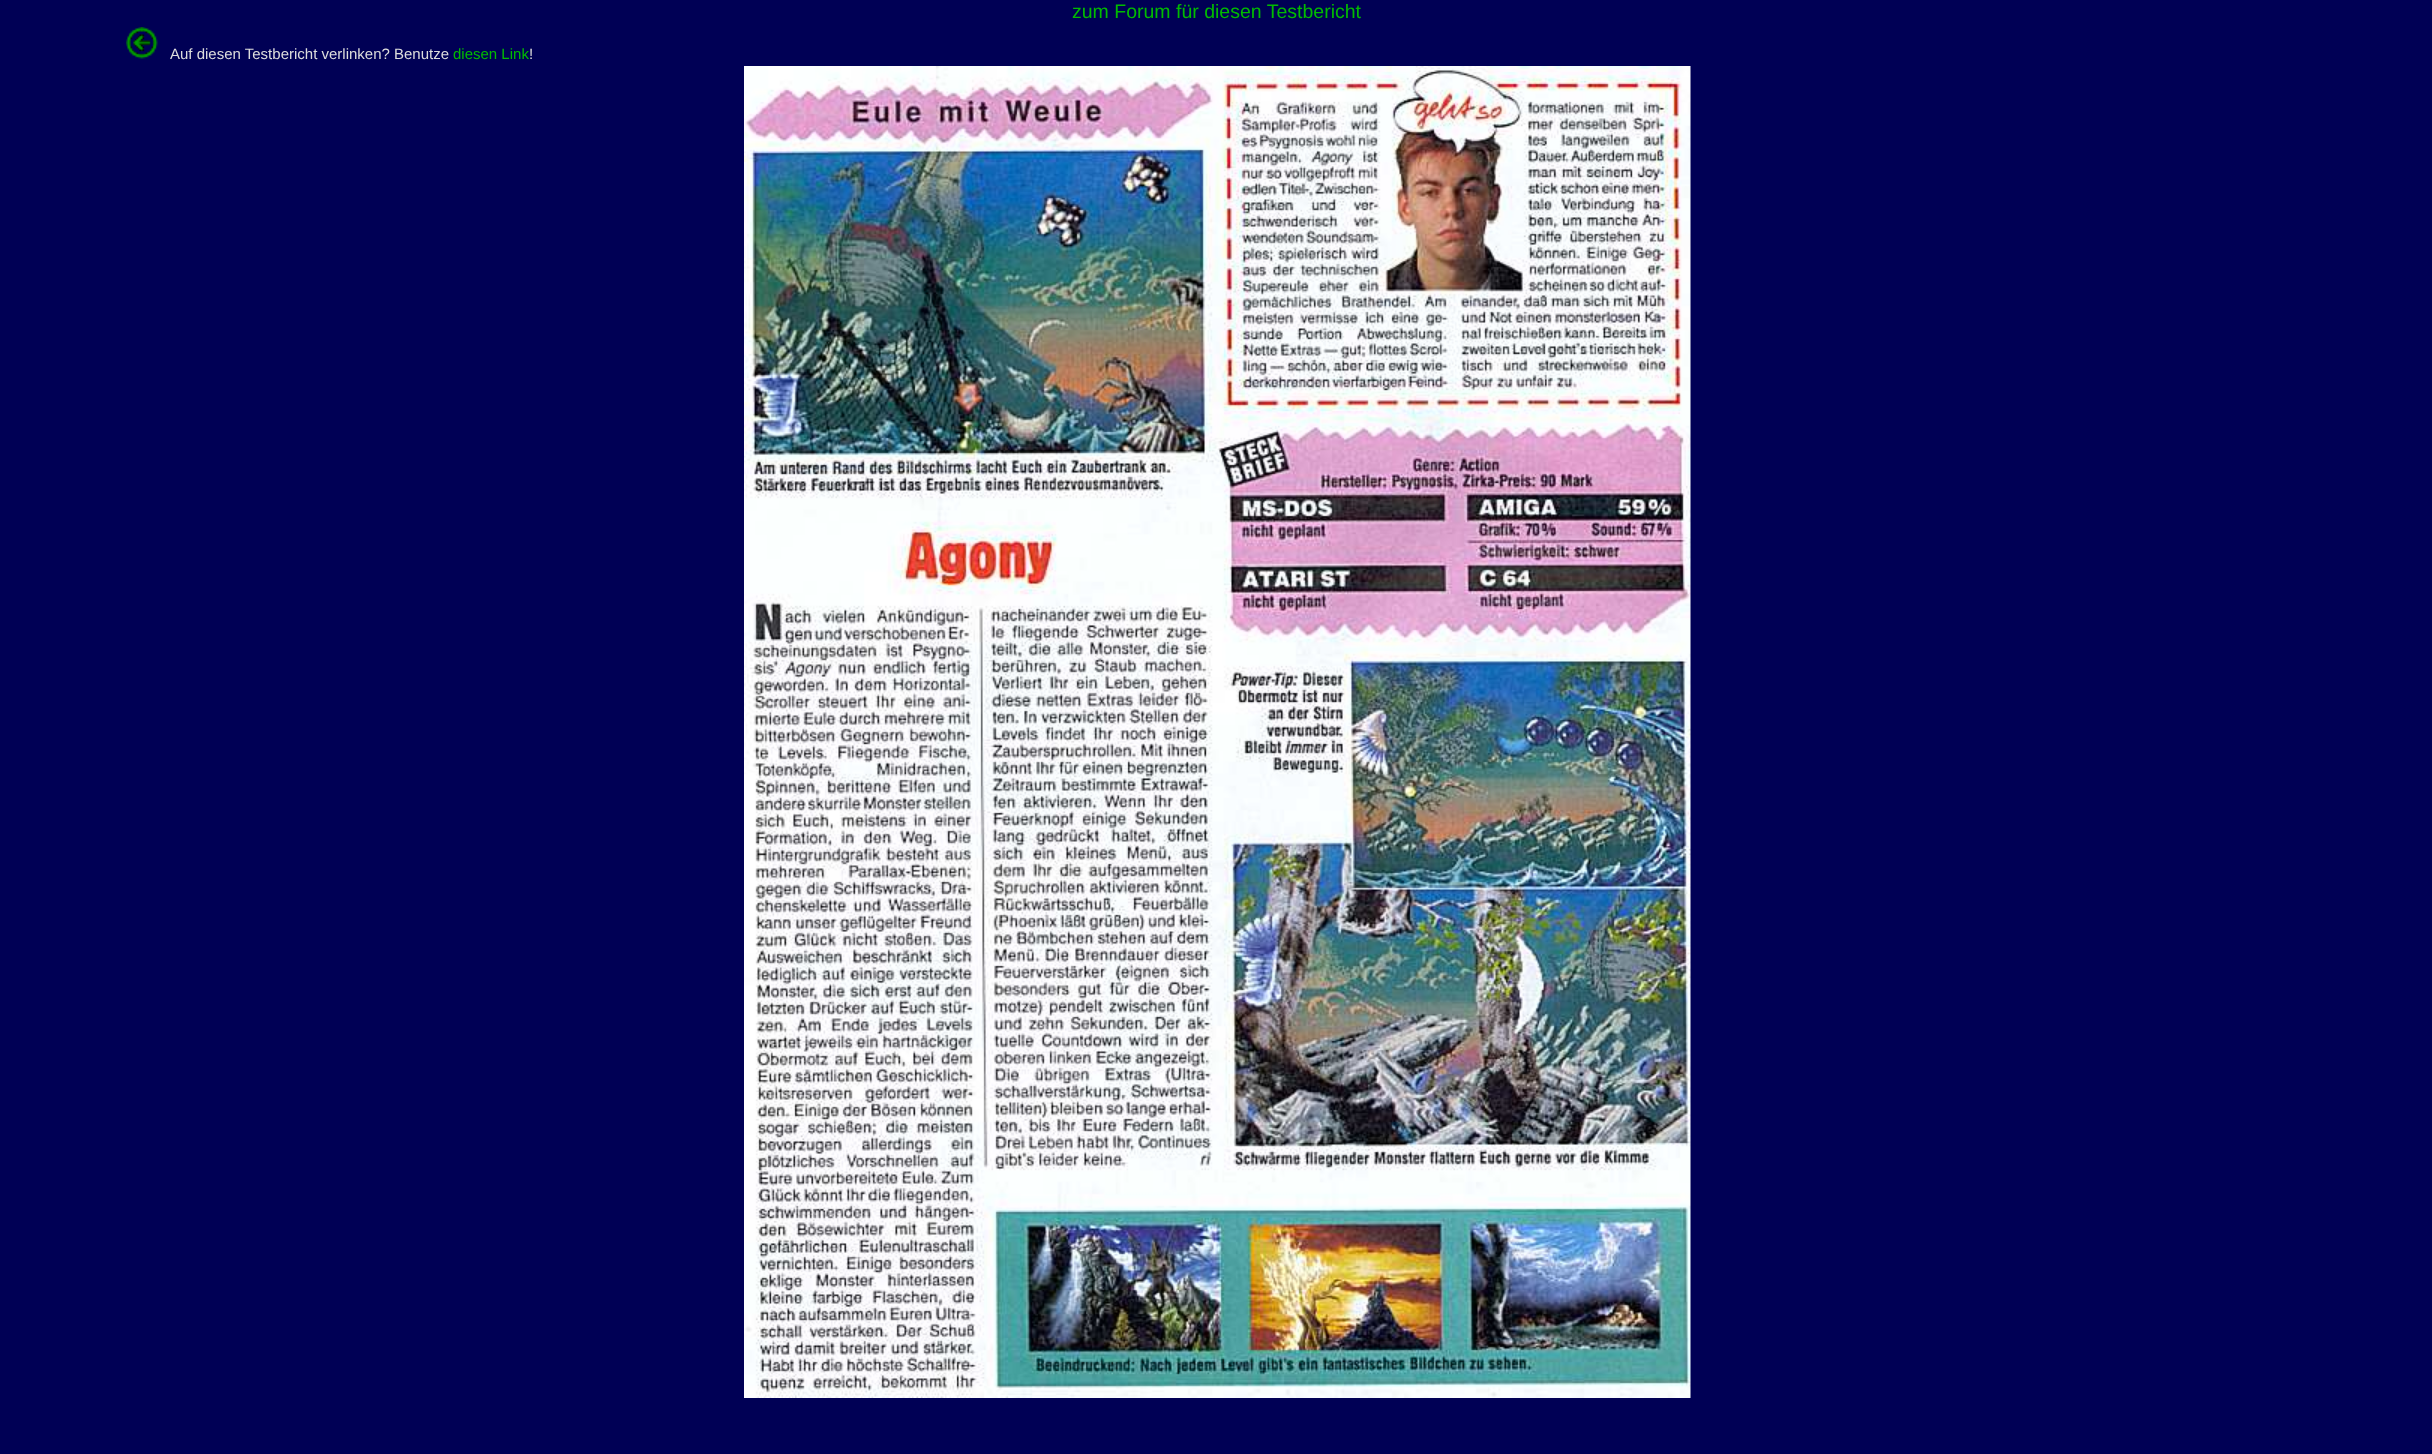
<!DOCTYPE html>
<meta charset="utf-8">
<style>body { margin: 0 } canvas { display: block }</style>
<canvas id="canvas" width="2432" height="1454"></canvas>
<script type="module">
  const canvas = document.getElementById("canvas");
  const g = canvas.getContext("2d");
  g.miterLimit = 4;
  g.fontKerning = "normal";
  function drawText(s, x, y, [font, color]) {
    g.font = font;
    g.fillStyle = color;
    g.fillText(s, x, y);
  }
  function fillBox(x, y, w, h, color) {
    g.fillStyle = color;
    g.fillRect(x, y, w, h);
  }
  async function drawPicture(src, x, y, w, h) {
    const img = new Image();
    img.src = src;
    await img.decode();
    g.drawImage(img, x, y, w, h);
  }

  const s1 = ["19.5px Liberation Sans", "#00BB00"];
  const s2 = ["15px Liberation Sans", "#DDDDDD"];
  const s3 = ["15px Liberation Sans", "#00BB00"];

  fillBox(0, 0, 2432, 1454, "#000055");
  drawText("zum Forum für diesen Testbericht", 1072, 18, s1);
  await drawPicture("pic1.png", 126, 27, 32, 32);
  drawText("Auf diesen Testbericht verlinken? Benutze", 170, 59, s2);
  drawText("diesen Link", 453, 59, s3);
  drawText("!", 529, 59, s2);
  await drawPicture("pic2.png", 744, 66, 947, 1332);
</script>
